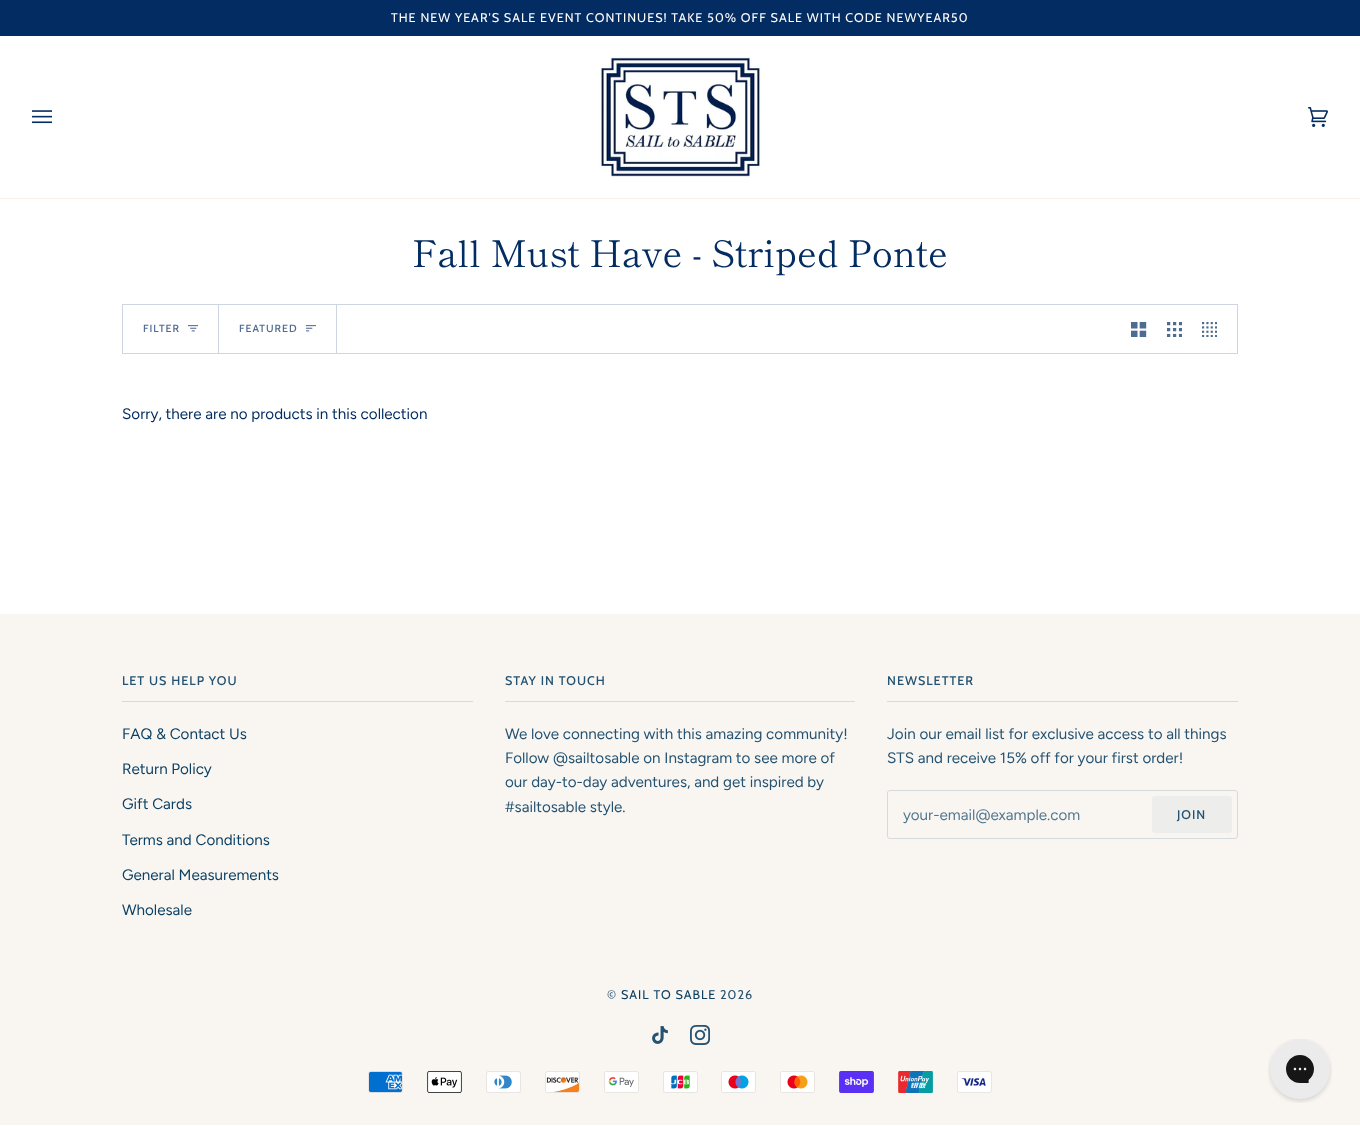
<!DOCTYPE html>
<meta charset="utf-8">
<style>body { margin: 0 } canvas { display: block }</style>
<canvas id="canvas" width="1360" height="1126"></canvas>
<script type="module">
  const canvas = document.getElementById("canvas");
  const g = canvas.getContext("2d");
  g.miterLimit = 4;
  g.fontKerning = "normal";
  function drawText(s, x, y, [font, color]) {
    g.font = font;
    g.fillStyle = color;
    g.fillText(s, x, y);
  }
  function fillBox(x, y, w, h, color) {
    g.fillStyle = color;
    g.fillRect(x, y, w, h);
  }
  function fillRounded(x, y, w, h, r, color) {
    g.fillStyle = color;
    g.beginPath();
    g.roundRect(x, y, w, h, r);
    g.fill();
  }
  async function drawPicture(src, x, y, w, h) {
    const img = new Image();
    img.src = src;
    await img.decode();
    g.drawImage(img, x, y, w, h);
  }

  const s1 = ["12.6px Cabin", "#FFFCF9"];
  const s2 = ["36.7px Shippori Mincho", "#022C62"];
  const s3 = ["500 10.5px Cabin", "#4E6B91"];
  const s4 = ["15.2px Figtree", "#022C62"];
  const s5 = ["500 12.6px Cabin", "#235272"];
  const s6 = ["15.2px Figtree", "#0B4064"];
  const s7 = ["15.2px Figtree", "#235272"];
  const s8 = ["15.2px Figtree", "#52778F"];
  const s9 = ["12.6px Cabin", "#235272"];
  const s10 = ["12.6px Cabin", "#0B4064"];

  fillBox(0, 0, 1360, 1126, "#FFFFFF");
  fillBox(0, 0, 1360, 36, "#022C62");
  g.letterSpacing = "1px";
  drawText("THE NEW YEAR'S SALE EVENT CONTINUES! TAKE 50% OFF SALE WITH CODE NEWYEAR50", 391, 22, s1);
  fillBox(0, 198, 1360, 1, "#F8F0E7");
  await drawPicture("pic1.png", 32, 110, 20, 14);
  await drawPicture("pic2.png", 598, 57, 163, 123);
  await drawPicture("pic3.png", 1308, 107, 20, 20);
  g.letterSpacing = "0px";
  drawText("Fall Must Have - Striped Ponte", 412, 267, s2);
  g.strokeStyle = "#CCD5E0";
  g.strokeRect(122.5, 304.5, 1115, 49);
  fillBox(218, 305, 1, 48, "#CCD5E0");
  g.letterSpacing = "1px";
  drawText("FILTER", 143, 332, s3);
  await drawPicture("pic4.png", 188, 325, 10, 7);
  fillBox(336, 305, 1, 48, "#CCD5E0");
  drawText("FEATURED", 239, 332, s3);
  await drawPicture("pic5.png", 306, 325, 10, 7);
  await drawPicture("pic6.png", 1131, 322, 16, 15);
  await drawPicture("pic7.png", 1167, 322, 15, 15);
  await drawPicture("pic8.png", 1202, 322, 15, 15);
  g.letterSpacing = "0px";
  drawText("Sorry, there are no products in this collection", 122, 419, s4);
  fillBox(0, 614, 1360, 511, "#F9F6F2");
  fillBox(122, 701, 351, 1, "#D5DBDD");
  g.letterSpacing = "1px";
  drawText("LET US HELP YOU", 122, 685, s5);
  g.letterSpacing = "0px";
  drawText("FAQ & Contact Us", 122, 739, s6);
  drawText("Return Policy", 122, 774, s6);
  drawText("Gift Cards", 122, 809, s6);
  drawText("Terms and Conditions", 122, 845, s6);
  drawText("General Measurements", 122, 880, s6);
  drawText("Wholesale", 122, 915, s6);
  fillBox(505, 701, 350, 1, "#D5DBDD");
  g.letterSpacing = "1px";
  drawText("STAY IN TOUCH", 505, 685, s5);
  g.letterSpacing = "0px";
  drawText("We love connecting with this amazing community!", 505, 739, s7);
  drawText("Follow @sailtosable on Instagram to see more of", 505, 763, s7);
  drawText("our day-to-day adventures, and get inspired by", 505, 787, s7);
  drawText("#sailtosable style.", 505, 812, s7);
  fillBox(887, 701, 351, 1, "#D5DBDD");
  g.letterSpacing = "1px";
  drawText("NEWSLETTER", 887, 685, s5);
  g.letterSpacing = "0px";
  drawText("Join our email list for exclusive access to all things", 887, 739, s7);
  drawText("STS and receive 15% off for your first order!", 887, 763, s7);
  g.beginPath();
  g.roundRect(887.5, 790.5, 350, 48, 2.5);
  g.strokeStyle = "#D5DBDD";
  g.stroke();
  drawText("your-email@example.com", 903, 820, s8);
  fillRounded(1152, 796, 80, 37, 3, "#EDEDEB");
  g.letterSpacing = "1px";
  drawText("JOIN", 1177, 819, s5);
  drawText("©", 607, 999, s9);
  drawText("SAIL TO SABLE", 621, 999, s10);
  drawText("2026", 720, 999, s9);
  await drawPicture("pic9.png", 652, 1026, 16, 18);
  await drawPicture("pic10.png", 690, 1025, 20, 20);
  await drawPicture("pic11.png", 368, 1071, 35, 22);
  await drawPicture("pic12.png", 427, 1071, 35, 22);
  await drawPicture("pic13.png", 486, 1071, 35, 22);
  await drawPicture("pic14.png", 545, 1071, 35, 22);
  await drawPicture("pic15.png", 604, 1071, 35, 22);
  await drawPicture("pic16.png", 663, 1071, 35, 22);
  await drawPicture("pic17.png", 721, 1071, 35, 22);
  await drawPicture("pic18.png", 780, 1071, 35, 22);
  await drawPicture("pic19.png", 839, 1071, 35, 22);
  await drawPicture("pic20.png", 898, 1071, 35, 22);
  await drawPicture("pic21.png", 957, 1071, 35, 22);
  await drawPicture("pic22.png", 1268, 1039, 64, 64);
</script>
